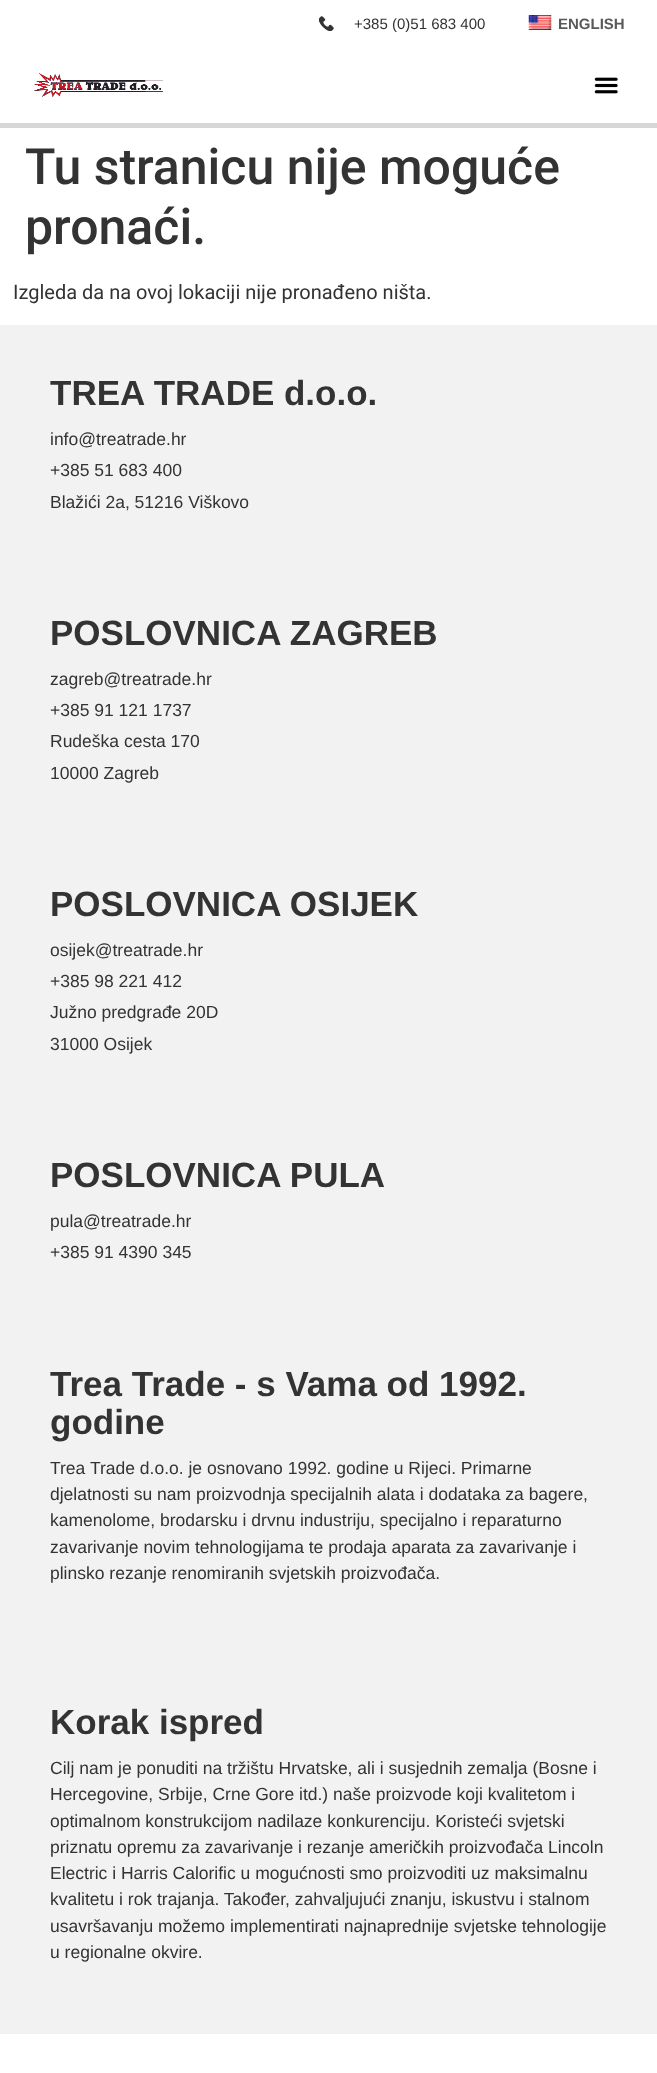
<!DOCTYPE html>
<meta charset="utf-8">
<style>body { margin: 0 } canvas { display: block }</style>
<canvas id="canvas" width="657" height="2073"></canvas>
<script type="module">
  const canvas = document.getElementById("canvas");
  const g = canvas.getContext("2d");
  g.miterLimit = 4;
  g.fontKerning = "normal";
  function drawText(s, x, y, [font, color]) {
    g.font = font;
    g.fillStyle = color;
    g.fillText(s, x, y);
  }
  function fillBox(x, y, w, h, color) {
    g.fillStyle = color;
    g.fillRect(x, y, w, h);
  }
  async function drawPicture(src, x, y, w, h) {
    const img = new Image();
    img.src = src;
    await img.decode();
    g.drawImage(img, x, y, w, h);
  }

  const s1 = ["15px Liberation Sans", "#333333"];
  const s2 = ["bold 15px Liberation Sans", "#595959"];
  const s3 = ["500 50px Roboto", "#333333"];
  const s4 = ["20px Roboto", "#333333"];
  const s5 = ["bold 35px Liberation Sans", "#333333"];
  const s6 = ["17.5px Liberation Sans", "#333333"];

  fillBox(0, 0, 657, 2073, "#FFFFFF");
  await drawPicture("pic1.png", 319, 16, 15, 15);
  drawText("+385 (0)51 683 400", 354, 29, s1);
  await drawPicture("pic2.png", 528, 15, 24, 15);
  drawText("ENGLISH", 558, 29, s2);
  fillBox(0, 123, 657, 5, "#D7D7D7");
  await drawPicture("pic3.png", 34, 73, 129, 24);
  await drawPicture("pic4.png", 594, 77, 24, 17);
  drawText("Tu stranicu nije moguće", 25, 184, s3);
  drawText("pronaći.", 25, 244, s3);
  drawText("Izgleda da na ovoj lokaciji nije pronađeno ništa.", 13, 299, s4);
  fillBox(0, 325, 657, 1709, "#F2F2F2");
  drawText("TREA TRADE d.o.o.", 50, 405, s5);
  drawText("info@treatrade.hr", 50, 445, s6);
  drawText("+385 51 683 400", 50, 476, s6);
  drawText("Blažići 2a, 51216 Viškovo", 50, 508, s6);
  drawText("POSLOVNICA ZAGREB", 50, 645, s5);
  drawText("zagreb@treatrade.hr", 50, 685, s6);
  drawText("+385 91 121 1737", 50, 716, s6);
  drawText("Rudeška cesta 170", 50, 747, s6);
  drawText("10000 Zagreb", 50, 779, s6);
  drawText("POSLOVNICA OSIJEK", 50, 916, s5);
  drawText("osijek@treatrade.hr", 50, 956, s6);
  drawText("+385 98 221 412", 50, 987, s6);
  drawText("Južno predgrađe 20D", 50, 1018, s6);
  drawText("31000 Osijek", 50, 1050, s6);
  drawText("POSLOVNICA PULA", 50, 1187, s5);
  drawText("pula@treatrade.hr", 50, 1227, s6);
  drawText("+385 91 4390 345", 50, 1258, s6);
  drawText("Trea Trade - s Vama od 1992.", 50, 1396, s5);
  drawText("godine", 50, 1434, s5);
  drawText("Trea Trade d.o.o. je osnovano 1992. godine u Rijeci. Primarne", 50, 1474, s6);
  drawText("djelatnosti su nam proizvodnja specijalnih alata i dodataka za bagere,", 50, 1500, s6);
  drawText("kamenolome, brodarsku i drvnu industriju, specijalno i reparaturno", 50, 1526, s6);
  drawText("zavarivanje novim tehnologijama te prodaja aparata za zavarivanje i", 50, 1553, s6);
  drawText("plinsko rezanje renomiranih svjetskih proizvođača.", 50, 1579, s6);
  drawText("Korak ispred", 50, 1734, s5);
  drawText("Cilj nam je ponuditi na tržištu Hrvatske, ali i susjednih zemalja (Bosne i", 50, 1774, s6);
  drawText("Hercegovine, Srbije, Crne Gore itd.) naše proizvode koji kvalitetom i", 50, 1800, s6);
  drawText("optimalnom konstrukcijom nadilaze konkurenciju. Koristeći svjetski", 50, 1827, s6);
  drawText("priznatu opremu za zavarivanje i rezanje američkih proizvođača Lincoln", 50, 1853, s6);
  drawText("Electric i Harris Calorific u mogućnosti smo proizvoditi uz maksimalnu", 50, 1879, s6);
  drawText("kvalitetu i rok trajanja. Također, zahvaljujući znanju, iskustvu i stalnom", 50, 1905, s6);
  drawText("usavršavanju možemo implementirati najnaprednije svjetske tehnologije", 50, 1932, s6);
  drawText("u regionalne okvire.", 50, 1958, s6);
</script>
